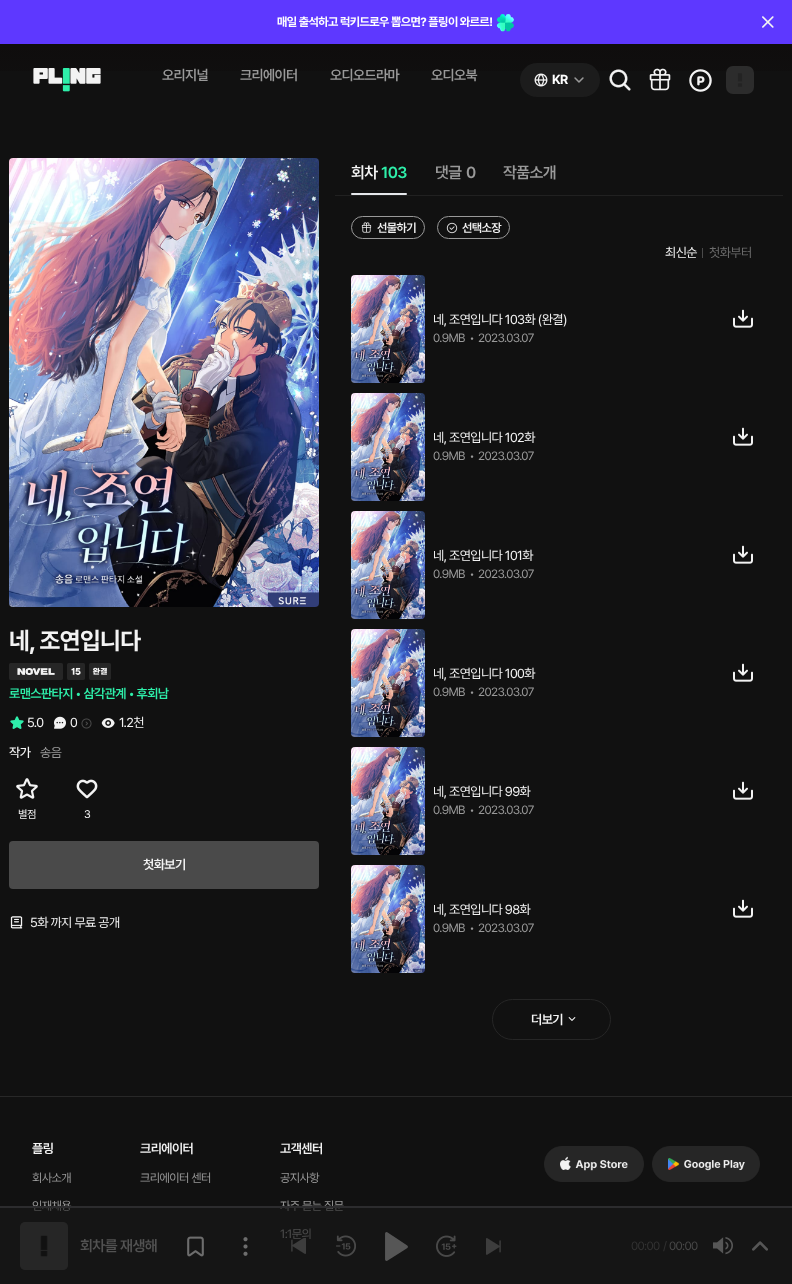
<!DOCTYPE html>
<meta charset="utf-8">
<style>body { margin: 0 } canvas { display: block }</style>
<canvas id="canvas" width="792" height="1284"></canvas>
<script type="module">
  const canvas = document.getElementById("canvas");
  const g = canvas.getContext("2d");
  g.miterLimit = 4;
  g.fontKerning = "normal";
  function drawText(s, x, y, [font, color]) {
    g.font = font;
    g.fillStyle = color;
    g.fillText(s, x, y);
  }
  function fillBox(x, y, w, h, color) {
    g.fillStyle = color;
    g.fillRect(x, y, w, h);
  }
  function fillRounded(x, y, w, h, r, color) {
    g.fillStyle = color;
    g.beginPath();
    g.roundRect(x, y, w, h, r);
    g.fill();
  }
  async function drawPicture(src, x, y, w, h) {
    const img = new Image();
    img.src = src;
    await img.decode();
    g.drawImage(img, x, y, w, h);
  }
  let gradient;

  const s1 = ["bold 12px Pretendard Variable", "#FFFFFF"];
  const s2 = ["600 14px Pretendard Variable", "#999999"];
  const s3 = ["bold 13px Pretendard Variable", "#FFFFFF"];
  const s4 = ["bold 24px Pretendard Variable", "#F3F3F3"];
  const s5 = ["600 13px Pretendard Variable", "#2EEFAA"];
  const s6 = ["13px Pretendard Variable", "#F3F3F3"];
  const s7 = ["500 13px Pretendard Variable", "#F3F3F3"];
  const s8 = ["13px Pretendard Variable", "#999999"];
  const s9 = ["11px Pretendard Variable", "#F3F3F3"];
  const s10 = ["600 13px Pretendard Variable", "#F3F3F3"];
  const s11 = ["600 16px Pretendard Variable", "#F3F3F3"];
  const s12 = ["600 16px Pretendard Variable", "#2EEFAA"];
  const s13 = ["600 16px Pretendard Variable", "#999999"];
  const s14 = ["600 12px Pretendard Variable", "#F3F3F3"];
  const s15 = ["13px Pretendard Variable", "#6B6B6B"];
  const s16 = ["12px Pretendard Variable", "#999999"];
  const s17 = ["600 15px Pretendard Variable", "#525252"];
  const s18 = ["12px Pretendard Variable", "#323232"];
  const s19 = ["12px Pretendard Variable", "#484848"];

  fillBox(0, 0, 792, 1284, "#111111");
  fillBox(0, 0, 792, 44, "#5E38FF");
  g.letterSpacing = "-0.6px";
  drawText("매일 출석하고 럭키드로우 뽑으면? 플링이 와르르!", 277, 26, s1);
  await drawPicture("pic1.png", 496, 14, 18, 18);
  await drawPicture("pic2.png", 762, 16, 12, 12);
  gradient = g.createLinearGradient(396, 44, 396, 116);
  gradient.addColorStop(0, "#0F0D0D");
  gradient.addColorStop(1, "#111111");
  g.fillStyle = gradient;
  g.fillRect(0, 44, 792, 27);
  await drawPicture("pic3.png", 33, 68, 68, 24);
  drawText("오리지널", 162, 80, s2);
  drawText("크리에이터", 240, 80, s2);
  drawText("오디오드라마", 330, 80, s2);
  drawText("오디오북", 431, 80, s2);
  fillRounded(520, 63, 80, 34, 17, "#1C1C1C");
  await drawPicture("pic4.png", 534, 73, 14, 14);
  drawText("KR", 552, 84, s3);
  await drawPicture("pic5.png", 574, 77, 10, 6);
  await drawPicture("pic6.png", 609, 69, 22, 22);
  await drawPicture("pic7.png", 649, 68, 22, 23);
  await drawPicture("pic8.png", 689, 69, 23, 23);
  await drawPicture("pic9.png", 726, 66, 28, 28);
  await drawPicture("pic10.png", 9, 158, 310, 449);
  drawText("네, 조연입니다", 9, 649, s4);
  await drawPicture("pic11.png", 9, 663, 54, 17);
  await drawPicture("pic12.png", 67, 663, 18, 17);
  await drawPicture("pic13.png", 89, 663, 22, 17);
  drawText("로맨스판타지 • 삼각관계 • 후회남", 9, 698, s5);
  await drawPicture("pic14.png", 10, 716, 14, 13);
  drawText("5.0", 27, 727, s6);
  await drawPicture("pic15.png", 54, 716, 12, 13);
  drawText("0", 70, 727, s6);
  await drawPicture("pic16.png", 81, 718, 11, 11);
  await drawPicture("pic17.png", 101, 718, 14, 10);
  drawText("1.2천", 119, 727, s6);
  drawText("작가", 9, 757, s7);
  drawText("송음", 40, 757, s8);
  await drawPicture("pic18.png", 16, 778, 22, 21);
  drawText("별점", 18, 818, s9);
  await drawPicture("pic19.png", 76, 779, 22, 20);
  drawText("3", 84, 818, s9);
  fillRounded(9, 841, 310, 48, 4, "#4A4A4A");
  drawText("첫화보기", 143, 869, s10);
  await drawPicture("pic20.png", 10, 916, 13, 13);
  drawText("5화 까지 무료 공개", 30, 927, s6);
  fillBox(335, 195, 448, 1, "#212121");
  drawText("회차", 351, 178, s11);
  drawText("103", 381, 178, s12);
  fillRounded(351, 193, 56, 2, 1, "#E5E7EB");
  drawText("댓글", 435, 178, s13);
  drawText("0", 466, 178, s13);
  drawText("작품소개", 503, 178, s13);
  g.beginPath();
  g.roundRect(351.5, 216.5, 73, 22, 11);
  g.strokeStyle = "#999999";
  g.stroke();
  await drawPicture("pic21.png", 361, 222, 11, 11);
  drawText("선물하기", 377, 232, s14);
  g.beginPath();
  g.roundRect(437.5, 216.5, 72, 22, 11);
  g.stroke();
  await drawPicture("pic22.png", 446, 222, 12, 12);
  drawText("선택소장", 462, 232, s14);
  drawText("최신순", 665, 257, s6);
  fillBox(702, 248, 1, 10, "#4A4A4A");
  drawText("첫화부터", 709, 257, s15);
  await drawPicture("pic23.png", 351, 275, 74, 108);
  drawText("네, 조연입니다 103화 (완결)", 433, 324, s6);
  drawText("0.9MB", 433, 342, s16);
  drawText("•", 469, 342, s16);
  drawText("2023.03.07", 478, 342, s16);
  await drawPicture("pic24.png", 733, 309, 20, 19);
  await drawPicture("pic23.png", 351, 393, 74, 108);
  drawText("네, 조연입니다 102화", 433, 442, s6);
  drawText("0.9MB", 433, 460, s16);
  drawText("•", 469, 460, s16);
  drawText("2023.03.07", 478, 460, s16);
  await drawPicture("pic24.png", 733, 427, 20, 19);
  await drawPicture("pic23.png", 351, 511, 74, 108);
  drawText("네, 조연입니다 101화", 433, 560, s6);
  drawText("0.9MB", 433, 578, s16);
  drawText("•", 469, 578, s16);
  drawText("2023.03.07", 478, 578, s16);
  await drawPicture("pic24.png", 733, 545, 20, 19);
  await drawPicture("pic23.png", 351, 629, 74, 108);
  drawText("네, 조연입니다 100화", 433, 678, s6);
  drawText("0.9MB", 433, 696, s16);
  drawText("•", 469, 696, s16);
  drawText("2023.03.07", 478, 696, s16);
  await drawPicture("pic24.png", 733, 663, 20, 19);
  await drawPicture("pic23.png", 351, 747, 74, 108);
  drawText("네, 조연입니다 99화", 433, 796, s6);
  drawText("0.9MB", 433, 814, s16);
  drawText("•", 469, 814, s16);
  drawText("2023.03.07", 478, 814, s16);
  await drawPicture("pic24.png", 733, 781, 20, 19);
  await drawPicture("pic23.png", 351, 865, 74, 108);
  drawText("네, 조연입니다 98화", 433, 914, s6);
  drawText("0.9MB", 433, 932, s16);
  drawText("•", 469, 932, s16);
  drawText("2023.03.07", 478, 932, s16);
  await drawPicture("pic24.png", 733, 899, 20, 19);
  g.beginPath();
  g.roundRect(492.5, 999.5, 118, 40, 20);
  g.strokeStyle = "#262626";
  g.stroke();
  drawText("더보기", 531, 1024, s10);
  await drawPicture("pic25.png", 568, 1017, 8, 4);
  fillBox(0, 1096, 792, 1, "#282828");
  drawText("플링", 32, 1153, s10);
  drawText("회사소개", 32, 1182, s16);
  drawText("인재채용", 32, 1210, s16);
  drawText("크리에이터", 140, 1153, s10);
  drawText("크리에이터 센터", 140, 1182, s16);
  drawText("고객센터", 280, 1153, s10);
  drawText("공지사항", 280, 1182, s16);
  drawText("자주 묻는 질문", 280, 1210, s16);
  drawText("1:1문의", 280, 1238, s16);
  await drawPicture("pic26.png", 544, 1146, 100, 36);
  await drawPicture("pic27.png", 652, 1146, 108, 36);
  fillBox(0, 1206, 792, 2, "#2C2C2E");
  fillBox(0, 1208, 792, 76, "rgba(25, 25, 25, 0.6)");
  await drawPicture("pic28.png", 20, 1222, 48, 48);
  drawText("회차를 재생해", 80, 1251, s17);
  await drawPicture("pic29.png", 187, 1236, 17, 21);
  await drawPicture("pic30.png", 243, 1237, 5, 19);
  await drawPicture("pic31.png", 291, 1238, 15, 16);
  await drawPicture("pic32.png", 336, 1235, 20, 22);
  await drawPicture("pic33.png", 385, 1232, 23, 29);
  await drawPicture("pic34.png", 436, 1235, 21, 22);
  await drawPicture("pic35.png", 486, 1238, 15, 17);
  drawText("00:00", 631, 1250, s18);
  drawText("/", 663, 1250, s18);
  drawText("00:00", 669, 1250, s19);
  await drawPicture("pic36.png", 713, 1237, 20, 18);
  await drawPicture("pic37.png", 752, 1241, 16, 10);
</script>
